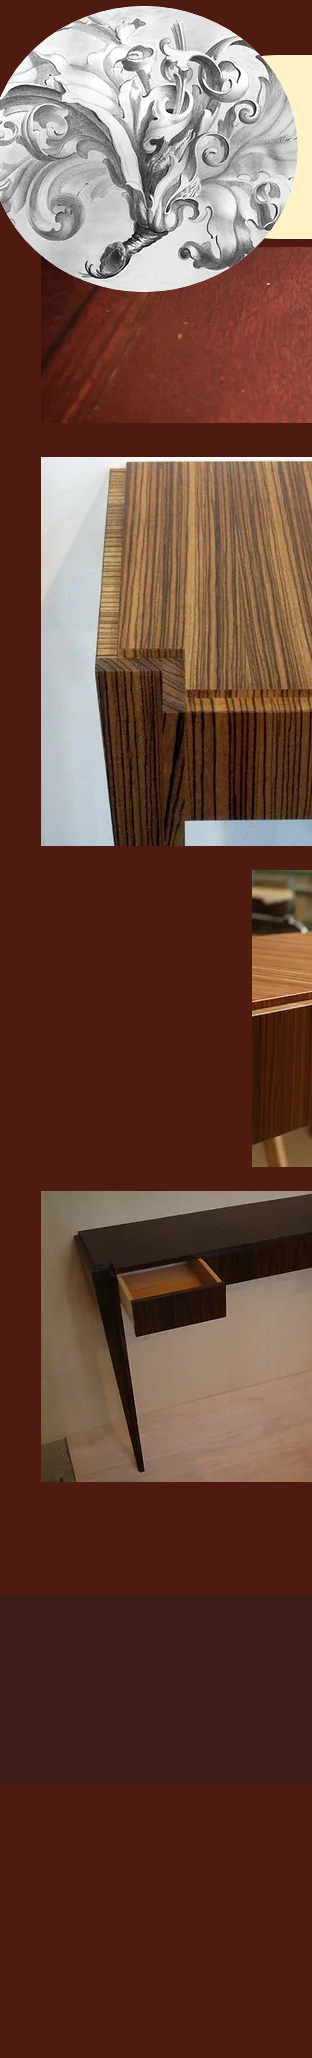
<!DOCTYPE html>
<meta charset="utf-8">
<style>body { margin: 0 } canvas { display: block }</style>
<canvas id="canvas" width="312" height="2058"></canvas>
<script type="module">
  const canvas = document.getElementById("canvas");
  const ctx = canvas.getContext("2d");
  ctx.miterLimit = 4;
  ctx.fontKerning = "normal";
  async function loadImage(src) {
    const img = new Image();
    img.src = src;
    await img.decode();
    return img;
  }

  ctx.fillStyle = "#4f1b11";
  ctx.fillRect(0, 0, 312, 2058);
  ctx.fillStyle = "#fef3c8";
  ctx.beginPath();
  ctx.moveTo(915, 239);
  ctx.lineTo(277, 239);
  ctx.bezierCurveTo(241, 239, 212, 221, 212, 199);
  ctx.lineTo(212, 95);
  ctx.bezierCurveTo(212, 73, 241, 55, 277, 55);
  ctx.lineTo(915, 55);
  ctx.bezierCurveTo(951, 55, 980, 73, 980, 95);
  ctx.lineTo(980, 199);
  ctx.bezierCurveTo(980, 221, 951, 239, 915, 239);
  ctx.closePath();
  ctx.fill();
  ctx.drawImage(await loadImage("img2.png"), 41, 247, 271, 176);
  ctx.fillStyle = "#ffffff";
  ctx.beginPath();
  ctx.ellipse(144, 149, 154, 143, 0, 0, Math.PI * 2);
  ctx.fill();
  ctx.drawImage(await loadImage("img1.png"), 0, 6, 298, 286);
  ctx.drawImage(await loadImage("img3.png"), 41, 457, 271, 389);
  ctx.drawImage(await loadImage("img4.png"), 252, 870, 60, 297);
  ctx.drawImage(await loadImage("img5.png"), 41, 1191, 271, 291);
  ctx.fillStyle = "#3c1d17";
  ctx.fillRect(0, 1595, 312, 189);
</script>
